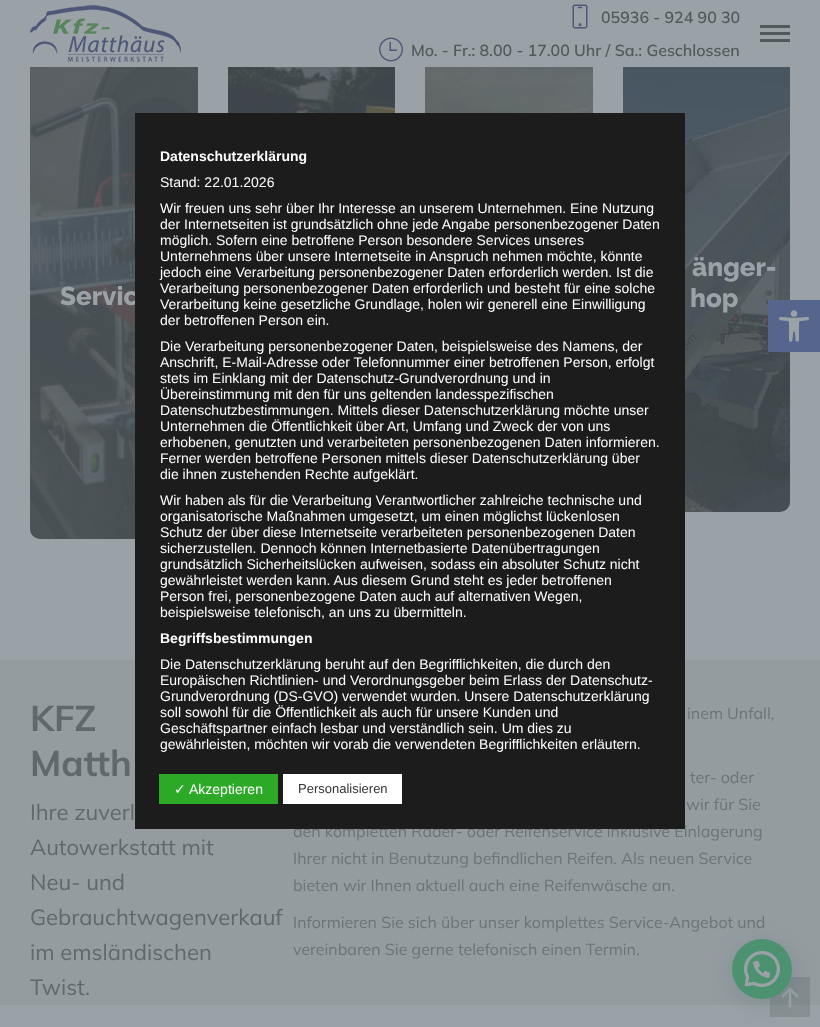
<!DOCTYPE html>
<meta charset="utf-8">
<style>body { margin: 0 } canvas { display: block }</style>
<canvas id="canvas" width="820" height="1027"></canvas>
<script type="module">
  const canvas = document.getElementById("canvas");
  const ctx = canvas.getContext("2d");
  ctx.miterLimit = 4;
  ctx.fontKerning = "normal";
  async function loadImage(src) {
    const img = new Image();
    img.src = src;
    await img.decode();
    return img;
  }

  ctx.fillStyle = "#9ba2a7";
  ctx.fillRect(0, 0, 820, 1027);
  ctx.fillStyle = "#889094";
  ctx.fillRect(770, 1005, 40, 12);
  ctx.drawImage(await loadImage("img1.png"), 30, 5, 151, 57);
  ctx.drawImage(await loadImage("img2.png"), 572, 4, 16, 25);
  ctx.font = "600 16px Mulish";
  ctx.fillStyle = "#51595d";
  ctx.fillText("05936 - 924 90 30", 601, 23);
  ctx.drawImage(await loadImage("img3.png"), 379, 37, 24, 25);
  ctx.fillText("Mo. - Fr.: 8.00 - 17.00 Uhr / Sa.: Geschlossen", 411, 56);
  ctx.fillRect(760, 25, 30, 3);
  ctx.fillRect(760, 32, 30, 3);
  ctx.fillRect(760, 39, 30, 3);
  ctx.drawImage(await loadImage("img4.png"), 228, 67, 167, 46);
  ctx.drawImage(await loadImage("img5.png"), 425, 67, 168, 46);
  ctx.drawImage(await loadImage("img6.png"), 30, 67, 168, 472);
  ctx.font = "800 26px Raleway";
  ctx.fillStyle = "#9ba2a7";
  ctx.fillText("Servic", 60, 305);
  ctx.drawImage(await loadImage("img7.png"), 623, 67, 167, 445);
  ctx.fillText("änger-", 692, 276);
  ctx.fillText("hop", 690, 307);
  ctx.fillStyle = "#949ca0";
  ctx.fillRect(0, 660, 820, 345);
  ctx.fillStyle = "#838b8f";
  ctx.fillRect(770, 977, 40, 28);
  ctx.font = "bold 36px Mulish";
  ctx.fillStyle = "#61686d";
  ctx.fillText("KFZ", 30, 731);
  ctx.fillText("Matth", 30, 776);
  ctx.font = "22px Mulish";
  ctx.fillText("Ihre zuverl", 30, 820);
  ctx.fillText("Autowerkstatt mit", 30, 855);
  ctx.fillText("Neu- und", 30, 890);
  ctx.fillText("Gebrauchtwagenverkauf", 30, 925);
  ctx.fillText("im emsländischen", 30, 960);
  ctx.fillText("Twist.", 30, 995);
  ctx.font = "16px Mulish";
  ctx.fillStyle = "#6c7479";
  ctx.fillText("inem Unfall,", 687, 719);
  ctx.fillText("ter- oder", 690, 783);
  ctx.fillText("wir für Sie", 686, 810);
  ctx.fillText("den kompletten Räder- oder Reifenservice inklusive Einlagerung", 293, 837);
  ctx.fillText("Ihrer nicht in Benutzung befindlichen Reifen. Als neuen Service", 293, 864);
  ctx.fillText("bieten wir Ihnen aktuell auch eine Reifenwäsche an.", 293, 891);
  ctx.fillText("Informieren Sie sich über unser komplettes Service-Angebot und", 293, 928);
  ctx.fillText("vereinbaren Sie gerne telefonisch einen Termin.", 293, 955);
  ctx.drawImage(await loadImage("img8.png"), 781, 987, 18, 21);
  ctx.fillStyle = "#1d1c1c";
  ctx.fillRect(135, 113, 550, 716);
  ctx.font = "bold 14px Liberation Sans";
  ctx.fillStyle = "#ffffff";
  ctx.fillText("Datenschutzerklärung", 160, 161);
  ctx.font = "14px Liberation Sans";
  ctx.fillText("Stand: 22.01.2026", 160, 187);
  ctx.fillText("Wir freuen uns sehr über Ihr Interesse an unserem Unternehmen. Eine Nutzung", 160, 213);
  ctx.fillText("der Internetseiten ist grundsätzlich ohne jede Angabe personenbezogener Daten", 160, 229);
  ctx.fillText("möglich. Sofern eine betroffene Person besondere Services unseres", 160, 245);
  ctx.fillText("Unternehmens über unsere Internetseite in Anspruch nehmen möchte, könnte", 160, 261);
  ctx.fillText("jedoch eine Verarbeitung personenbezogener Daten erforderlich werden. Ist die", 160, 277);
  ctx.fillText("Verarbeitung personenbezogener Daten erforderlich und besteht für eine solche", 160, 293);
  ctx.fillText("Verarbeitung keine gesetzliche Grundlage, holen wir generell eine Einwilligung", 160, 309);
  ctx.fillText("der betroffenen Person ein.", 160, 325);
  ctx.fillText("Die Verarbeitung personenbezogener Daten, beispielsweise des Namens, der", 160, 351);
  ctx.fillText("Anschrift, E-Mail-Adresse oder Telefonnummer einer betroffenen Person, erfolgt", 160, 367);
  ctx.fillText("stets im Einklang mit der Datenschutz-Grundverordnung und in", 160, 383);
  ctx.fillText("Übereinstimmung mit den für uns geltenden landesspezifischen", 160, 399);
  ctx.fillText("Datenschutzbestimmungen. Mittels dieser Datenschutzerklärung möchte unser", 160, 415);
  ctx.fillText("Unternehmen die Öffentlichkeit über Art, Umfang und Zweck der von uns", 160, 431);
  ctx.fillText("erhobenen, genutzten und verarbeiteten personenbezogenen Daten informieren.", 160, 447);
  ctx.fillText("Ferner werden betroffene Personen mittels dieser Datenschutzerklärung über", 160, 463);
  ctx.fillText("die ihnen zustehenden Rechte aufgeklärt.", 160, 479);
  ctx.fillText("Wir haben als für die Verarbeitung Verantwortlicher zahlreiche technische und", 160, 505);
  ctx.fillText("organisatorische Maßnahmen umgesetzt, um einen möglichst lückenlosen", 160, 521);
  ctx.fillText("Schutz der über diese Internetseite verarbeiteten personenbezogenen Daten", 160, 537);
  ctx.fillText("sicherzustellen. Dennoch können Internetbasierte Datenübertragungen", 160, 553);
  ctx.fillText("grundsätzlich Sicherheitslücken aufweisen, sodass ein absoluter Schutz nicht", 160, 569);
  ctx.fillText("gewährleistet werden kann. Aus diesem Grund steht es jeder betroffenen", 160, 585);
  ctx.fillText("Person frei, personenbezogene Daten auch auf alternativen Wegen,", 160, 601);
  ctx.fillText("beispielsweise telefonisch, an uns zu übermitteln.", 160, 617);
  ctx.font = "bold 14px Liberation Sans";
  ctx.fillText("Begriffsbestimmungen", 160, 643);
  ctx.font = "14px Liberation Sans";
  ctx.fillText("Die Datenschutzerklärung beruht auf den Begrifflichkeiten, die durch den", 160, 669);
  ctx.fillText("Europäischen Richtlinien- und Verordnungsgeber beim Erlass der Datenschutz-", 160, 685);
  ctx.fillText("Grundverordnung (DS-GVO) verwendet wurden. Unsere Datenschutzerklärung", 160, 701);
  ctx.fillText("soll sowohl für die Öffentlichkeit als auch für unsere Kunden und", 160, 717);
  ctx.fillText("Geschäftspartner einfach lesbar und verständlich sein. Um dies zu", 160, 733);
  ctx.fillText("gewährleisten, möchten wir vorab die verwendeten Begrifflichkeiten erläutern.", 160, 749);
  ctx.fillStyle = "#2caa27";
  ctx.fillRect(159, 774, 119, 30);
  ctx.font = "14px DejaVu Sans";
  ctx.fillStyle = "#ffffff";
  ctx.fillText("✓", 174, 794);
  ctx.font = "14px Liberation Sans";
  ctx.fillText("Akzeptieren", 189, 794);
  ctx.fillRect(283, 774, 119, 30);
  ctx.font = "13px Liberation Sans";
  ctx.fillStyle = "#333333";
  ctx.fillText("Personalisieren", 298, 793);
  ctx.fillStyle = "#56658b";
  ctx.fillRect(768, 300, 52, 52);
  ctx.drawImage(await loadImage("img9.png"), 779, 310, 30, 32);
  ctx.fillStyle = "rgba(65, 104, 105, 0.24)";
  ctx.filter = "blur(12px)";
  ctx.beginPath();
  ctx.roundRect(733, 945, 60, 60, 30);
  ctx.fill();
  ctx.filter = "none";
  ctx.fillStyle = "#4c9270";
  ctx.beginPath();
  ctx.arc(762, 969, 30, 0, Math.PI * 2);
  ctx.fill();
  ctx.drawImage(await loadImage("img10.png"), 744, 951, 36, 36);
</script>
